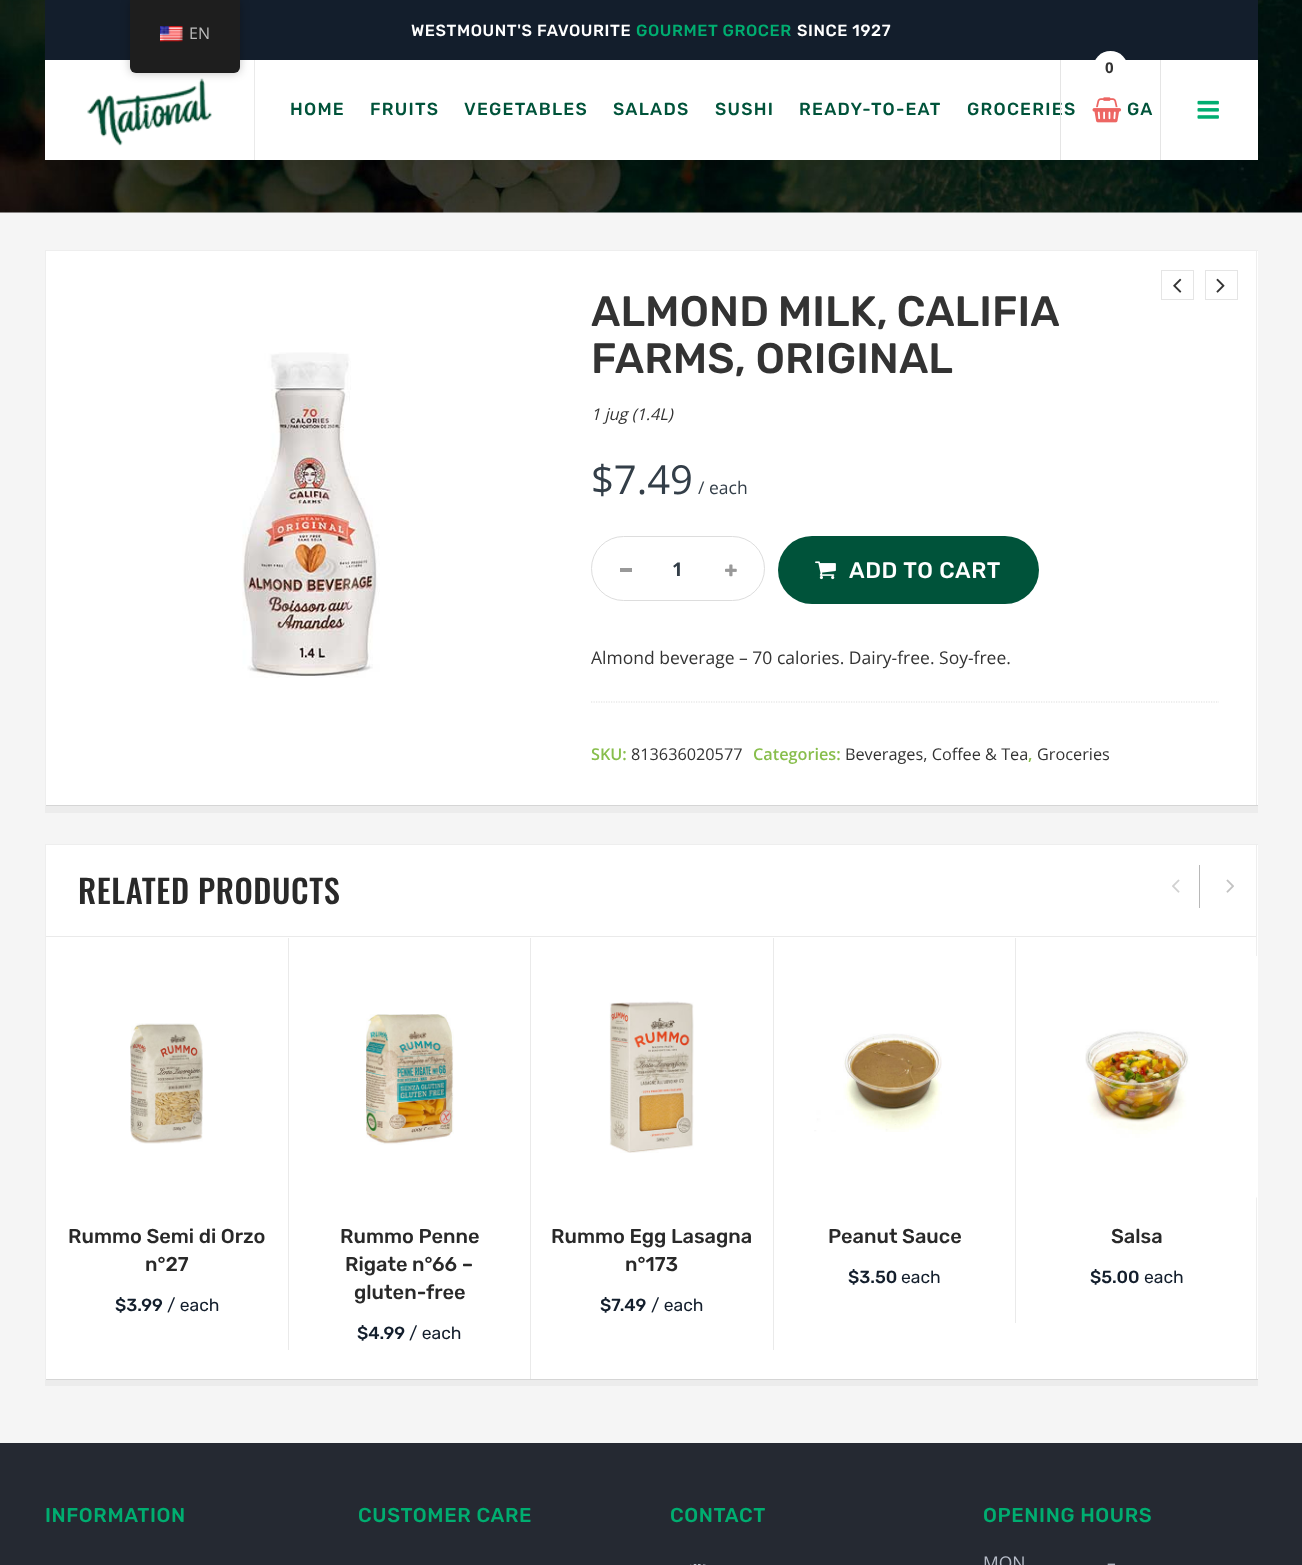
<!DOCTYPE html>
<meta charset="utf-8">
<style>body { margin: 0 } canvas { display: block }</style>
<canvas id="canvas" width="1302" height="1565"></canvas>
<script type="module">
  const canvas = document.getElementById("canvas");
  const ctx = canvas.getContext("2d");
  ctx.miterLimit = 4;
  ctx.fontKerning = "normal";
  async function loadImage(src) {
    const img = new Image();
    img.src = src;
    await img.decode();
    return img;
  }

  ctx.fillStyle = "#f5f5f5";
  ctx.fillRect(0, 0, 1302, 1565);
  ctx.drawImage(await loadImage("img1.png"), 0, 0, 1302, 213);
  ctx.fillStyle = "#131e2c";
  ctx.fillRect(45, 0, 1213, 60);
  ctx.letterSpacing = "0.6px";
  ctx.font = "500 16.25px Rubik";
  ctx.fillStyle = "#ffffff";
  ctx.fillText("WESTMOUNT'S FAVOURITE", 411, 36);
  ctx.fillStyle = "#00ad70";
  ctx.fillText("GOURMET GROCER", 636, 36);
  ctx.fillStyle = "#ffffff";
  ctx.fillText("SINCE 1927", 797, 36);
  ctx.fillRect(45, 60, 1115, 100);
  ctx.fillStyle = "#eaeaea";
  ctx.fillRect(254, 60, 1, 100);
  ctx.drawImage(await loadImage("img2.png"), 87, 78, 125, 68);
  ctx.letterSpacing = "1.25px";
  ctx.font = "500 17.5px Rubik";
  ctx.fillStyle = "#00533a";
  ctx.fillText("GROCERIES", 967, 115);
  ctx.fillStyle = "#e5e5e5";
  ctx.fillRect(1060, 60, 1, 100);
  ctx.fillStyle = "#ffffff";
  ctx.beginPath();
  ctx.arc(1110.5, 68.5, 17.5, 0, Math.PI * 2);
  ctx.fill();
  ctx.letterSpacing = "0.6px";
  ctx.font = "bold 15px Open Sans";
  ctx.fillStyle = "#333333";
  ctx.fillText("0", 1105, 73);
  ctx.drawImage(await loadImage("img3.png"), 1092, 97, 30, 26);
  ctx.fillStyle = "#ffffff";
  ctx.fillRect(1161, 60, 97, 100);
  ctx.fillStyle = "#e5e5e5";
  ctx.fillRect(1160, 60, 1, 100);
  ctx.drawImage(await loadImage("img4.png"), 1197, 100, 22, 19);
  ctx.letterSpacing = "1.25px";
  ctx.font = "500 17.5px Rubik";
  ctx.fillStyle = "#00533a";
  ctx.fillText("HOME", 290, 115);
  ctx.fillText("FRUITS", 370, 115);
  ctx.fillText("VEGETABLES", 464, 115);
  ctx.fillText("SALADS", 613, 115);
  ctx.fillText("SUSHI", 715, 115);
  ctx.fillText("READY-TO-EAT", 799, 115);
  ctx.fillText("GA", 1127, 115);
  ctx.fillStyle = "#ececec";
  ctx.beginPath();
  ctx.moveTo(45, 806);
  ctx.lineTo(45, 813);
  ctx.lineTo(1258, 813);
  ctx.lineTo(1258, 256);
  ctx.lineTo(1258, 806);
  ctx.closePath();
  ctx.fill();
  ctx.fillStyle = "#ffffff";
  ctx.fillRect(46, 251, 1212, 554);
  ctx.fillStyle = "#eeeeee";
  ctx.fillRect(45, 250, 1213, 1);
  ctx.fillRect(1256, 250, 1, 556);
  ctx.fillStyle = "#d5d5d5";
  ctx.fillRect(45, 805, 1213, 1);
  ctx.fillStyle = "#eeeeee";
  ctx.fillRect(45, 250, 1, 556);
  ctx.drawImage(await loadImage("img5.png"), 242, 352, 138, 326);
  ctx.strokeStyle = "#e5e5e5";
  ctx.strokeRect(1161.5, 270.5, 32, 29);
  ctx.drawImage(await loadImage("img6.png"), 1173, 278, 9, 15);
  ctx.strokeRect(1205.5, 270.5, 32, 29);
  ctx.drawImage(await loadImage("img7.png"), 1216, 278, 9, 15);
  ctx.letterSpacing = "0px";
  ctx.wordSpacing = "-1px";
  ctx.font = "500 42.5px Rubik";
  ctx.fillStyle = "#333333";
  ctx.fillText("ALMOND MILK, CALIFIA", 591, 326);
  ctx.wordSpacing = "0px";
  ctx.fillText("FARMS, ORIGINAL", 591, 373);
  ctx.font = "italic 16.25px Open Sans";
  ctx.fillText("1 jug (1.4L)", 591, 420);
  ctx.font = "40px Open Sans";
  ctx.fillStyle = "#333e48";
  ctx.fillText("$7.49", 591, 494);
  ctx.font = "17.5px Open Sans";
  ctx.fillText("/ each", 698, 494);
  ctx.beginPath();
  ctx.roundRect(591.5, 536.5, 173, 64, 32);
  ctx.strokeStyle = "#dddddd";
  ctx.stroke();
  ctx.fillStyle = "#999999";
  ctx.fillRect(620, 568, 12, 4);
  ctx.font = "bold 19px Open Sans";
  ctx.fillStyle = "#333e48";
  ctx.fillText("1", 672, 576);
  ctx.drawImage(await loadImage("img8.png"), 725, 564, 12, 13);
  ctx.fillStyle = "#00533a";
  ctx.beginPath();
  ctx.roundRect(778, 536, 261, 68, 34);
  ctx.fill();
  ctx.drawImage(await loadImage("img9.png"), 815, 561, 21, 19);
  ctx.letterSpacing = "0.6px";
  ctx.font = "500 22.5px Rubik";
  ctx.fillStyle = "#ffffff";
  ctx.fillText("ADD TO CART", 849, 578);
  ctx.beginPath();
  ctx.moveTo(591, 702);
  ctx.lineTo(1219, 702);
  ctx.lineWidth = 1.2;
  ctx.setLineDash([1.25, 1.25]);
  ctx.stroke();
  ctx.letterSpacing = "0px";
  ctx.font = "17.5px Open Sans";
  ctx.fillStyle = "#333333";
  ctx.fillText("Almond beverage – 70 calories. Dairy-free. Soy-free.", 591, 664);
  ctx.font = "600 16.25px Open Sans";
  ctx.fillStyle = "#88be4c";
  ctx.fillText("SKU:", 591, 760);
  ctx.font = "16.25px Open Sans";
  ctx.fillStyle = "#333333";
  ctx.fillText("813636020577", 631, 760);
  ctx.font = "600 16.25px Open Sans";
  ctx.fillStyle = "#88be4c";
  ctx.fillText("Categories:", 753, 760);
  ctx.font = "16.25px Open Sans";
  ctx.fillStyle = "#333333";
  ctx.fillText("Beverages, Coffee & Tea", 845, 760);
  ctx.font = "600 16.25px Open Sans";
  ctx.fillStyle = "#88be4c";
  ctx.fillText(",", 1028, 760);
  ctx.font = "16.25px Open Sans";
  ctx.fillStyle = "#333333";
  ctx.fillText("Groceries", 1037, 760);
  ctx.fillStyle = "#ececec";
  ctx.beginPath();
  ctx.moveTo(45, 1380);
  ctx.lineTo(45, 1386);
  ctx.lineTo(1258, 1386);
  ctx.lineTo(1258, 850);
  ctx.lineTo(1258, 1380);
  ctx.closePath();
  ctx.fill();
  ctx.fillStyle = "#ffffff";
  ctx.fillRect(46, 845, 1212, 534);
  ctx.fillStyle = "#eeeeee";
  ctx.fillRect(45, 844, 1213, 1);
  ctx.fillRect(1256, 844, 1, 536);
  ctx.fillStyle = "#d5d5d5";
  ctx.fillRect(45, 1379, 1213, 1);
  ctx.fillStyle = "#eeeeee";
  ctx.fillRect(45, 844, 1, 536);
  ctx.fillStyle = "#eaeaea";
  ctx.fillRect(46, 936, 1210, 1);
  ctx.letterSpacing = "0.6px";
  ctx.font = "500 32.5px Oswald";
  ctx.fillStyle = "#292929";
  ctx.fillText("RELATED PRODUCTS", 78, 904);
  ctx.fillStyle = "#b8b8b8";
  ctx.fillRect(1199, 865, 1, 43);
  ctx.drawImage(await loadImage("img10.png"), 1172, 879, 8, 14);
  ctx.drawImage(await loadImage("img11.png"), 1226, 879, 8, 14);
  ctx.fillStyle = "#eaeaea";
  ctx.fillRect(288, 938, 1, 412);
  ctx.drawImage(await loadImage("img12.png"), 130, 1023, 73, 121);
  ctx.letterSpacing = "0px";
  ctx.font = "500 20px Rubik";
  ctx.fillStyle = "#292929";
  ctx.fillText("Rummo Semi di Orzo", 68, 1243);
  ctx.fillText("n°27", 145, 1271);
  ctx.font = "500 17.5px Rubik";
  ctx.fillStyle = "#131e2c";
  ctx.fillText("$3.99", 115, 1311);
  ctx.font = "17.5px Rubik";
  ctx.fillText("/ each", 167, 1311);
  ctx.fillStyle = "#eaeaea";
  ctx.fillRect(530, 938, 1, 441);
  ctx.drawImage(await loadImage("img13.png"), 365, 1014, 89, 131);
  ctx.font = "500 20px Rubik";
  ctx.fillStyle = "#292929";
  ctx.fillText("Rummo Penne", 340, 1243);
  ctx.fillText("Rigate n°66 –", 345, 1271);
  ctx.fillText("gluten-free", 354, 1299);
  ctx.font = "500 17.5px Rubik";
  ctx.fillStyle = "#131e2c";
  ctx.fillText("$4.99", 357, 1339);
  ctx.font = "17.5px Rubik";
  ctx.fillText("/ each", 409, 1339);
  ctx.fillStyle = "#eaeaea";
  ctx.fillRect(773, 938, 1, 412);
  ctx.drawImage(await loadImage("img14.png"), 609, 1001, 85, 152);
  ctx.font = "500 20px Rubik";
  ctx.fillStyle = "#292929";
  ctx.fillText("Rummo Egg Lasagna", 551, 1243);
  ctx.fillText("n°173", 625, 1271);
  ctx.font = "500 17.5px Rubik";
  ctx.fillStyle = "#131e2c";
  ctx.fillText("$7.49", 600, 1311);
  ctx.font = "17.5px Rubik";
  ctx.fillText("/ each", 651, 1311);
  ctx.fillStyle = "#eaeaea";
  ctx.fillRect(1015, 938, 1, 385);
  ctx.drawImage(await loadImage("img15.png"), 814, 1033, 128, 99);
  ctx.font = "500 20px Rubik";
  ctx.fillStyle = "#292929";
  ctx.fillText("Peanut Sauce", 828, 1243);
  ctx.font = "500 17.5px Rubik";
  ctx.fillStyle = "#131e2c";
  ctx.fillText("$3.50", 848, 1283);
  ctx.font = "17.5px Rubik";
  ctx.fillText("each", 901, 1283);
  ctx.drawImage(await loadImage("img16.png"), 1085, 956, 172, 242);
  ctx.font = "500 20px Rubik";
  ctx.fillStyle = "#292929";
  ctx.fillText("Salsa", 1111, 1243);
  ctx.font = "500 17.5px Rubik";
  ctx.fillStyle = "#131e2c";
  ctx.fillText("$5.00", 1090, 1283);
  ctx.font = "17.5px Rubik";
  ctx.fillText("each", 1144, 1283);
  ctx.fillStyle = "#252932";
  ctx.fillRect(0, 1443, 1302, 122);
  ctx.letterSpacing = "0.6px";
  ctx.font = "500 20px Rubik";
  ctx.fillStyle = "#00ad70";
  ctx.fillText("INFORMATION", 45, 1522);
  ctx.fillText("CUSTOMER CARE", 358, 1522);
  ctx.fillText("CONTACT", 670, 1522);
  ctx.save();
  ctx.beginPath();
  ctx.rect(670, 1564, 256, 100);
  ctx.clip();
  ctx.beginPath();
  ctx.moveTo(698, 1565);
  ctx.bezierCurveTo(713, 1565, 725, 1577, 725, 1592);
  ctx.bezierCurveTo(725, 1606.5, 713, 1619, 698, 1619);
  ctx.bezierCurveTo(683.5, 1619, 671, 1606.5, 671, 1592);
  ctx.bezierCurveTo(671, 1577, 683.5, 1565, 698, 1565);
  ctx.closePath();
  ctx.strokeStyle = "#b7bcc8";
  ctx.lineWidth = 2.5;
  ctx.setLineDash([2.5, 2.5]);
  ctx.stroke();
  ctx.restore();
  ctx.fillText("OPENING HOURS", 983, 1522);
  ctx.letterSpacing = "0px";
  ctx.font = "17.5px Open Sans";
  ctx.fillStyle = "#b7bcc8";
  ctx.fillText("MON", 983, 1569);
  ctx.fillText("–", 1107, 1569);
  ctx.fillStyle = "rgba(0, 0, 0, 0.25)";
  ctx.filter = "blur(5px)";
  ctx.beginPath();
  ctx.roundRect(130, 0, 110, 73, 6);
  ctx.fill();
  ctx.filter = "none";
  ctx.fillStyle = "#1e1e1e";
  ctx.beginPath();
  ctx.roundRect(130, 0, 110, 73, [0, 0, 6, 6]);
  ctx.fill();
  ctx.drawImage(await loadImage("img17.png"), 160, 26, 23, 16);
  ctx.font = "16px Open Sans";
  ctx.fillStyle = "#bdbdbd";
  ctx.fillText("EN", 189, 39);
</script>
